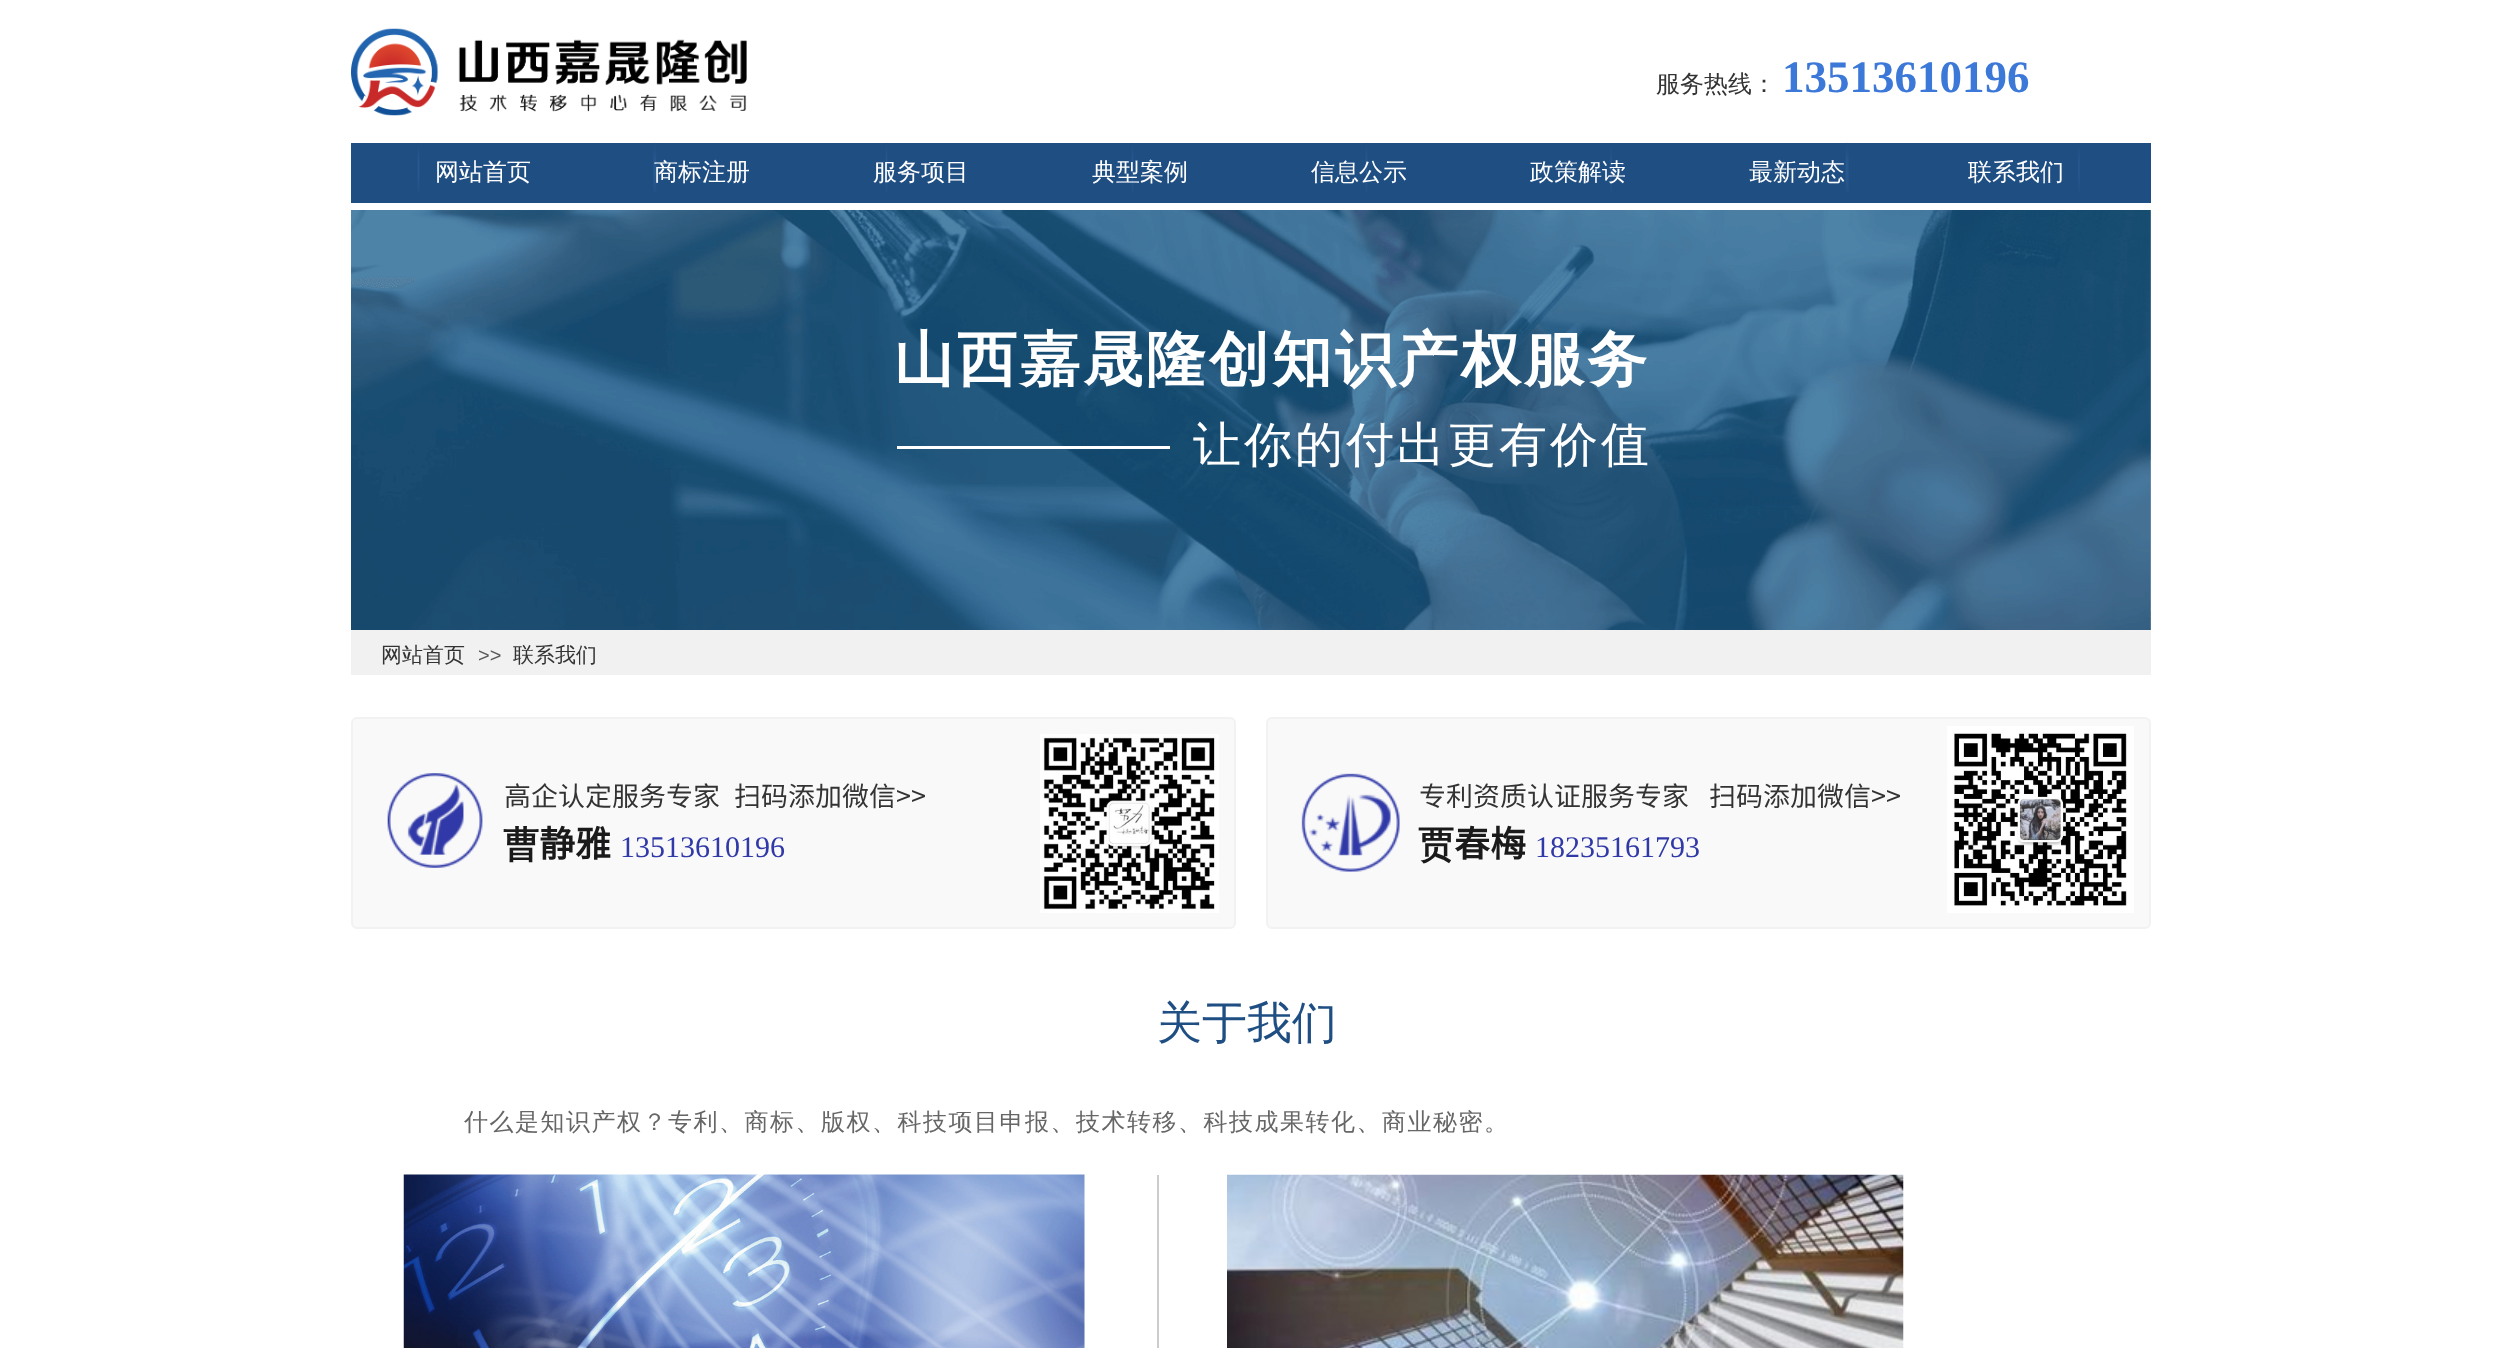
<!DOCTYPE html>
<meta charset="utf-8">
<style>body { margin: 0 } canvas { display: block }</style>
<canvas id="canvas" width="2501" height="1348"></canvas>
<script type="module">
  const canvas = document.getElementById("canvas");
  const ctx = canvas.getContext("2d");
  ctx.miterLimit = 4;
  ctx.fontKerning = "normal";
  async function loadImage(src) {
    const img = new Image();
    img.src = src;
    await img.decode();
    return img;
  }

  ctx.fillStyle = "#ffffff";
  ctx.fillRect(0, 0, 2501, 1348);
  ctx.drawImage(await loadImage("img1.png"), 351, 28, 396, 88);
  ctx.font = "500 24px WenQuanYi Zen Hei";
  ctx.fillStyle = "#333333";
  ctx.fillText("服务热线：", 1656, 92);
  ctx.font = "bold 45px Liberation Serif";
  ctx.fillStyle = "#3c78d8";
  ctx.fillText("13513610196", 1782, 92);
  ctx.fillStyle = "#1f4e83";
  ctx.fillRect(351, 143, 1800, 60);
  ctx.drawImage(await loadImage("img2.png"), 417, 142, 1663, 50);
  ctx.font = "500 24px WenQuanYi Zen Hei";
  ctx.fillStyle = "#ffffff";
  ctx.fillText("网站首页", 435, 180);
  ctx.fillText("商标注册", 654, 180);
  ctx.fillText("服务项目", 873, 180);
  ctx.fillText("典型案例", 1092, 180);
  ctx.fillText("信息公示", 1311, 180);
  ctx.fillText("政策解读", 1530, 180);
  ctx.fillText("最新动态", 1749, 180);
  ctx.fillText("联系我们", 1968, 180);
  ctx.drawImage(await loadImage("img3.png"), 351, 210, 1800, 420);
  ctx.letterSpacing = "3px";
  ctx.font = "bold 60px WenQuanYi Zen Hei";
  ctx.fillText("山西嘉晟隆创知识产权服务", 894, 380);
  ctx.fillRect(897, 446, 273, 3);
  ctx.save();
  ctx.beginPath();
  ctx.rect(1193, 411, 465, 65);
  ctx.clip();
  ctx.font = "500 48px WenQuanYi Zen Hei";
  ctx.fillText("让你的付出更有价值", 1193, 461);
  ctx.restore();
  ctx.fillStyle = "#f1f1f1";
  ctx.fillRect(351, 630, 1800, 45);
  ctx.letterSpacing = "0px";
  ctx.font = "500 21px WenQuanYi Zen Hei";
  ctx.fillStyle = "#333333";
  ctx.fillText("网站首页", 381, 662);
  ctx.font = "20px Liberation Sans";
  ctx.fillStyle = "#5a5a5a";
  ctx.fillText(">>", 478, 662);
  ctx.font = "500 21px WenQuanYi Zen Hei";
  ctx.fillStyle = "#333333";
  ctx.fillText("联系我们", 513, 662);
  ctx.fillStyle = "#f9f9f9";
  ctx.beginPath();
  ctx.roundRect(352, 718, 883, 210, 5);
  ctx.fill();
  ctx.strokeStyle = "#f2f2f2";
  ctx.lineWidth = 2;
  ctx.stroke();
  ctx.drawImage(await loadImage("img4.png"), 387, 773, 96, 95);
  ctx.font = "27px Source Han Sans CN";
  ctx.fillStyle = "#333333";
  ctx.fillText("高企认定服务专家", 504, 806);
  ctx.fillText("扫码添加微信>>", 734, 806);
  ctx.drawImage(await loadImage("img5.png"), 1040, 734, 179, 179);
  ctx.font = "bold 36px WenQuanYi Zen Hei";
  ctx.fillStyle = "#1a1a1a";
  ctx.fillText("曹", 503, 857);
  ctx.font = "bold 36px Source Han Sans CN";
  ctx.fillText("静雅", 539, 857);
  ctx.font = "30px Liberation Serif";
  ctx.fillStyle = "#3039a7";
  ctx.fillText("13513610196", 620, 857);
  ctx.fillStyle = "#f9f9f9";
  ctx.beginPath();
  ctx.roundRect(1267, 718, 883, 210, 5);
  ctx.fill();
  ctx.stroke();
  ctx.drawImage(await loadImage("img6.png"), 1301, 773, 99, 99);
  ctx.font = "27px Source Han Sans CN";
  ctx.fillStyle = "#333333";
  ctx.fillText("专利资质认证服务专家", 1419, 806);
  ctx.fillText("扫码添加微信>>", 1709, 806);
  ctx.drawImage(await loadImage("img7.png"), 1947, 726, 187, 187);
  ctx.font = "bold 36px WenQuanYi Zen Hei";
  ctx.fillStyle = "#1a1a1a";
  ctx.fillText("贾", 1418, 857);
  ctx.font = "bold 36px Source Han Sans CN";
  ctx.fillText("春梅", 1454, 857);
  ctx.font = "30px Liberation Serif";
  ctx.fillStyle = "#3039a7";
  ctx.fillText("18235161793", 1535, 857);
  ctx.font = "500 45px WenQuanYi Zen Hei";
  ctx.fillStyle = "#1f4e83";
  ctx.fillText("关于我们", 1157, 1038);
  ctx.letterSpacing = "1.5px";
  ctx.font = "500 24px WenQuanYi Zen Hei";
  ctx.fillStyle = "#666666";
  ctx.fillText("什么是知识产权？专利、商标、版权、科技项目申报、技术转移、科技成果转化、商业秘密。", 464, 1130);
  ctx.drawImage(await loadImage("img8.png"), 403, 1174, 682, 174);
  ctx.fillStyle = "#cccccc";
  ctx.fillRect(1157, 1175, 2, 173);
  ctx.drawImage(await loadImage("img9.png"), 1227, 1174, 677, 174);
</script>
